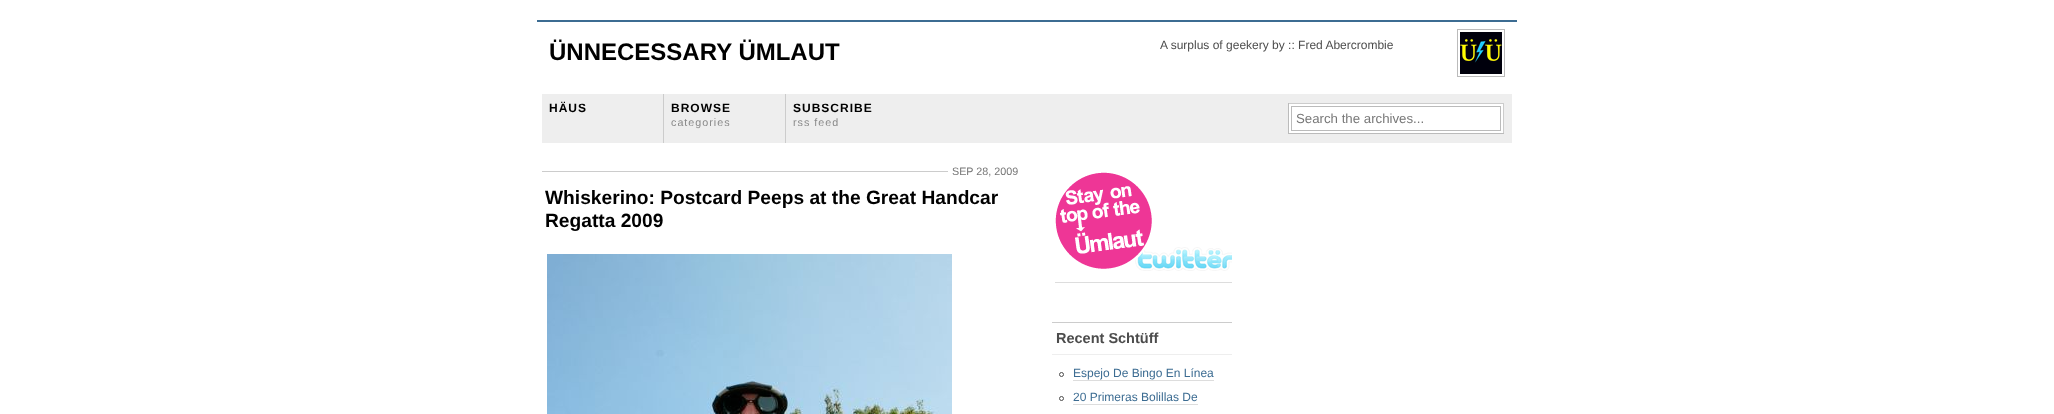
<!DOCTYPE html>
<meta charset="utf-8">
<style>body { margin: 0 } canvas { display: block }</style>
<canvas id="canvas" width="2054" height="414"></canvas>
<script type="module">
  const canvas = document.getElementById("canvas");
  const ctx = canvas.getContext("2d");
  ctx.miterLimit = 4;
  ctx.fontKerning = "normal";
  async function loadImage(src) {
    const img = new Image();
    img.src = src;
    await img.decode();
    return img;
  }

  ctx.fillStyle = "#ffffff";
  ctx.fillRect(0, 0, 2054, 414);
  ctx.fillStyle = "#3c6c92";
  ctx.fillRect(537, 20, 980, 2);
  ctx.font = "bold 24px Liberation Sans";
  ctx.fillStyle = "#000000";
  ctx.fillText("ÜNNECESSARY ÜMLAUT", 549, 60);
  ctx.font = "12px Liberation Sans";
  ctx.fillStyle = "#4c4c4c";
  ctx.fillText("A surplus of geekery by :: Fred Abercrombie", 1160, 49);
  ctx.strokeStyle = "#bbbbbb";
  ctx.strokeRect(1457.5, 29.5, 47, 47);
  ctx.drawImage(await loadImage("img1.png"), 1460, 32, 42, 42);
  ctx.fillStyle = "#eeeeee";
  ctx.fillRect(542, 94, 970, 49);
  ctx.fillStyle = "#cccccc";
  ctx.fillRect(663, 94, 1, 49);
  ctx.letterSpacing = "1px";
  ctx.font = "bold 12px Liberation Sans";
  ctx.fillStyle = "#000000";
  ctx.fillText("HÄUS", 549, 112);
  ctx.fillStyle = "#cccccc";
  ctx.fillRect(785, 94, 1, 49);
  ctx.fillStyle = "#000000";
  ctx.fillText("BROWSE", 671, 112);
  ctx.font = "10.75px Liberation Sans";
  ctx.fillStyle = "#888888";
  ctx.fillText("categories", 671, 126);
  ctx.font = "bold 12px Liberation Sans";
  ctx.fillStyle = "#000000";
  ctx.fillText("SUBSCRIBE", 793, 112);
  ctx.font = "10.75px Liberation Sans";
  ctx.fillStyle = "#888888";
  ctx.fillText("rss feed", 793, 126);
  ctx.fillStyle = "#ffffff";
  ctx.fillRect(1289, 104, 214, 29);
  ctx.fillStyle = "#cccccc";
  ctx.fillRect(1288, 103, 216, 1);
  ctx.fillRect(1503, 103, 1, 31);
  ctx.fillStyle = "#bbbbbb";
  ctx.fillRect(1288, 133, 216, 1);
  ctx.fillRect(1288, 103, 1, 31);
  ctx.strokeRect(1291.5, 106.5, 209, 24);
  ctx.letterSpacing = "0px";
  ctx.font = "13.25px Liberation Sans";
  ctx.fillStyle = "#777777";
  ctx.fillText("Search the archives...", 1296, 123);
  ctx.fillStyle = "#cccccc";
  ctx.fillRect(542, 171, 406, 1);
  ctx.font = "10.75px Liberation Sans";
  ctx.fillStyle = "#777777";
  ctx.fillText("SEP 28, 2009", 952, 175);
  ctx.font = "bold 19.2px Liberation Sans";
  ctx.fillStyle = "#000000";
  ctx.fillText("Whiskerino: Postcard Peeps at the Great Handcar", 545, 204);
  ctx.fillText("Regatta 2009", 545, 227);
  ctx.drawImage(await loadImage("img2.png"), 547, 254, 405, 160);
  ctx.drawImage(await loadImage("img3.png"), 1055, 172, 177, 99);
  ctx.fillStyle = "#dddddd";
  ctx.fillRect(1055, 282, 177, 1);
  ctx.fillStyle = "#cccccc";
  ctx.fillRect(1052, 322, 180, 1);
  ctx.fillStyle = "#eeeeee";
  ctx.fillRect(1052, 354, 180, 1);
  ctx.font = "bold 14.5px Liberation Sans";
  ctx.fillStyle = "#4c4c4c";
  ctx.fillText("Recent Schtüff", 1056, 343);
  ctx.beginPath();
  ctx.arc(1061.5, 374.5, 2, 0, Math.PI * 2);
  ctx.strokeStyle = "#4c4c4c";
  ctx.stroke();
  ctx.font = "12px Liberation Sans";
  ctx.fillStyle = "#3c6c92";
  ctx.fillText("Espejo De Bingo En Línea", 1073, 377);
  ctx.fillStyle = "#dddddd";
  ctx.fillRect(1073, 380, 141, 1);
  ctx.beginPath();
  ctx.arc(1061.5, 398.5, 2, 0, Math.PI * 2);
  ctx.stroke();
  ctx.fillStyle = "#3c6c92";
  ctx.fillText("20 Primeras Bolillas De", 1073, 401);
  ctx.fillStyle = "#dddddd";
  ctx.fillRect(1073, 404, 125, 1);
</script>
